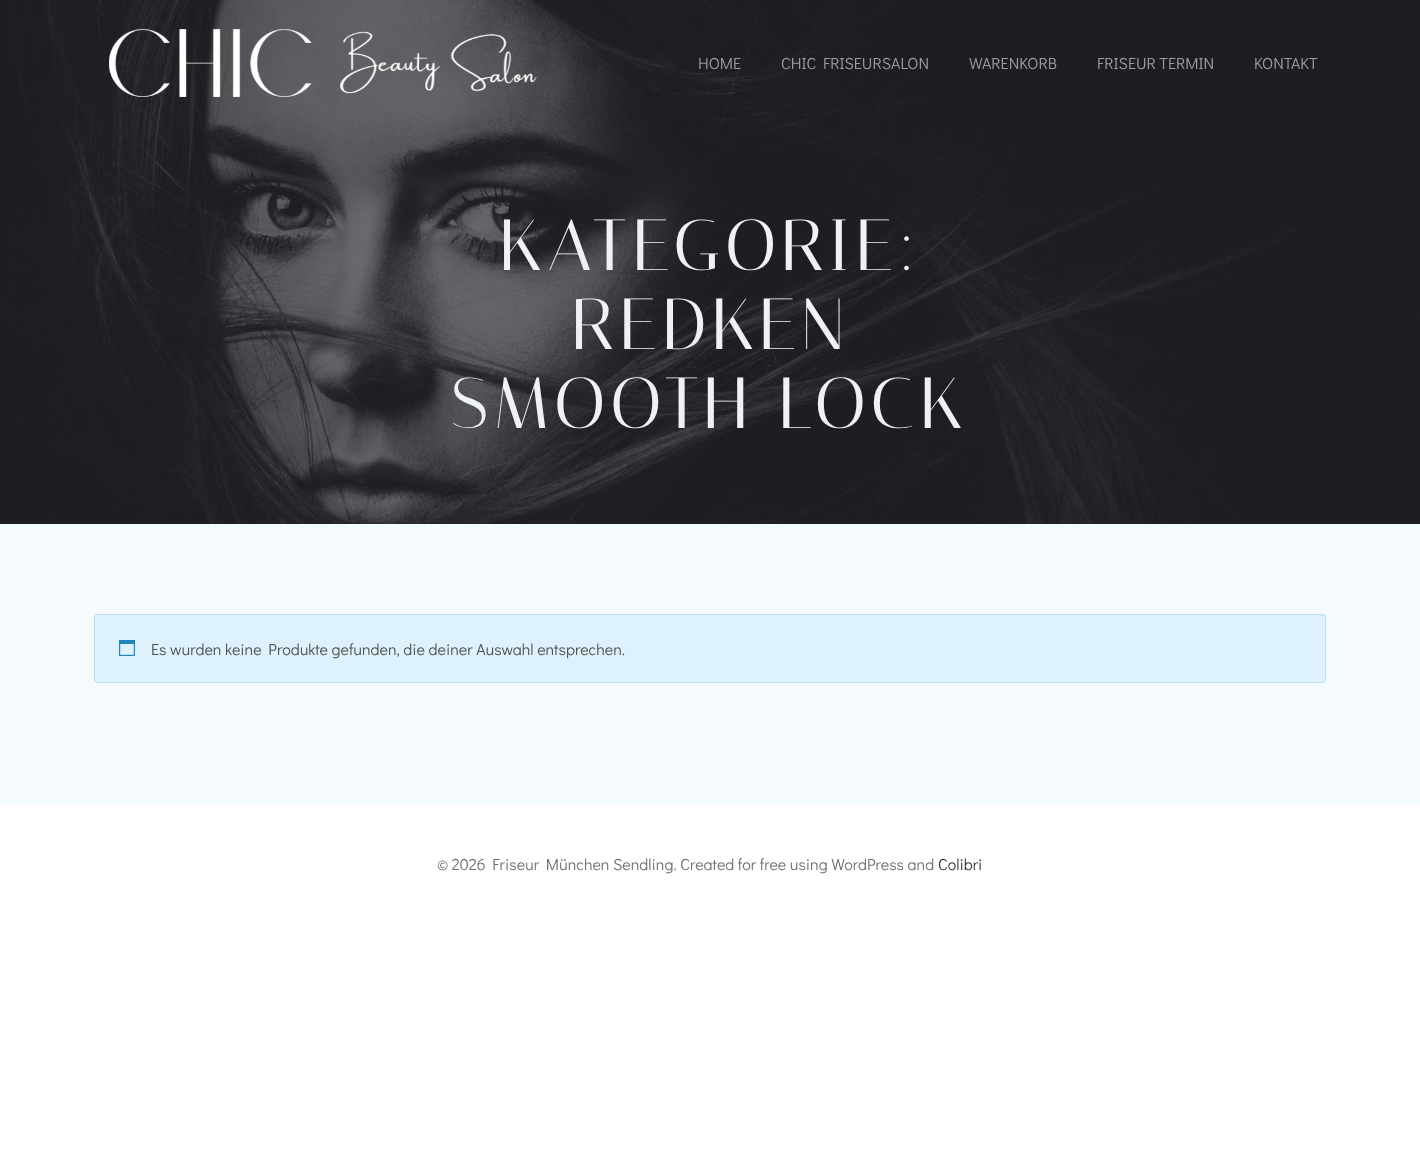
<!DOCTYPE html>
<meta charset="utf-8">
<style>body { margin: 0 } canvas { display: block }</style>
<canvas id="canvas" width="1420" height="1165"></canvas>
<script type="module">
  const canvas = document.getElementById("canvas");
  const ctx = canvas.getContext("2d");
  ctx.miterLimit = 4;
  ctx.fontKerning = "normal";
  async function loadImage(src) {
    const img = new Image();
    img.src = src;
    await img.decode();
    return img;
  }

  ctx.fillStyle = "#ffffff";
  ctx.fillRect(0, 0, 1420, 1165);
  ctx.drawImage(await loadImage("img2.png"), 0, 0, 1420, 524);
  ctx.drawImage(await loadImage("img1.png"), 109, 29, 428, 68);
  ctx.font = "16px Didact Gothic";
  ctx.fillStyle = "#9b9da1";
  ctx.fillText("HOME", 698, 69);
  ctx.fillText("CHIC FRISEURSALON", 781, 69);
  ctx.fillText("WARENKORB", 969, 69);
  ctx.fillText("FRISEUR TERMIN", 1097, 69);
  ctx.fillText("KONTAKT", 1254, 69);
  ctx.letterSpacing = "5px";
  ctx.font = "72px Italiana";
  ctx.fillStyle = "#eef1f5";
  ctx.fillText("KATEGORIE:", 499, 270);
  ctx.fillText("REDKEN", 571, 349);
  ctx.fillText("SMOOTH LOCK", 451, 428);
  ctx.fillStyle = "#f5fafd";
  ctx.fillRect(0, 524, 1420, 281);
  ctx.fillStyle = "#ddf2fc";
  ctx.beginPath();
  ctx.roundRect(94, 614, 1232, 69, 4);
  ctx.fill();
  ctx.beginPath();
  ctx.roundRect(94.5, 614.5, 1231, 68, 3.5);
  ctx.strokeStyle = "rgba(74, 144, 226, 0.2)";
  ctx.stroke();
  ctx.drawImage(await loadImage("img3.png"), 119, 640, 16, 16);
  ctx.letterSpacing = "0px";
  ctx.font = "16px Didact Gothic";
  ctx.fillStyle = "#515151";
  ctx.fillText("Es wurden keine Produkte gefunden, die deiner Auswahl entsprechen.", 151, 655);
  ctx.fillStyle = "#717175";
  ctx.fillText("© 2026 Friseur München Sendling. Created for free using WordPress and", 437, 870);
  ctx.fillStyle = "#373739";
  ctx.fillText("Colibri", 938, 870);
</script>
